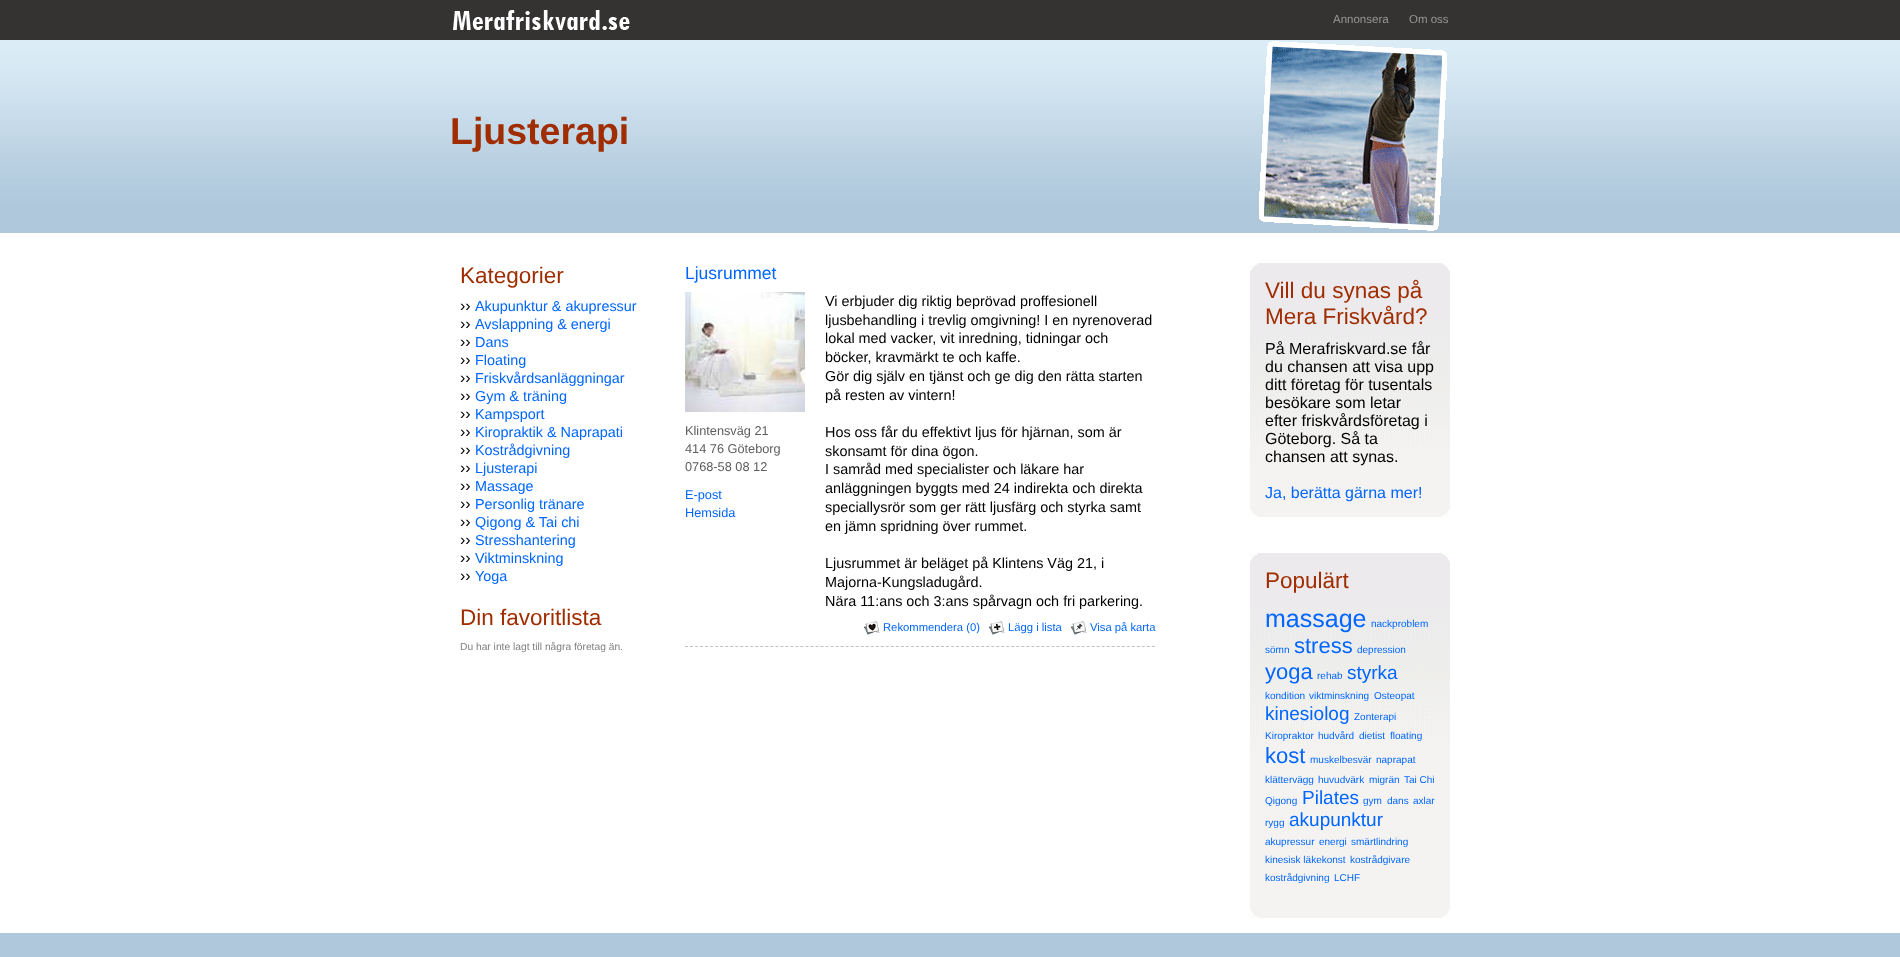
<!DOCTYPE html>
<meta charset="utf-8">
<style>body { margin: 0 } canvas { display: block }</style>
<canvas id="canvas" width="1900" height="957"></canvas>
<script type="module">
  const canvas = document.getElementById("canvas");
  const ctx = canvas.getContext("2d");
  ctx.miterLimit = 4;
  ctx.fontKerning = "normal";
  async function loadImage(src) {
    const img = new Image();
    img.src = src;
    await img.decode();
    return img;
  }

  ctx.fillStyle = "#ffffff";
  ctx.fillRect(0, 0, 1900, 957);
  ctx.fillStyle = "#353232";
  ctx.fillRect(0, 0, 1900, 40);
  ctx.drawImage(await loadImage("img1.png"), 453, 10, 177, 20);
  ctx.font = "11.5px Liberation Sans";
  ctx.fillStyle = "#969696";
  ctx.fillText("Annonsera", 1333, 23);
  ctx.fillText("Om oss", 1409, 23);
  ctx.drawImage(await loadImage("img2.png"), 0, 40, 1900, 193);
  ctx.font = "bold 37.5px Liberation Sans";
  ctx.fillStyle = "#a02d00";
  ctx.fillText("Ljusterapi", 450, 144);
  ctx.drawImage(await loadImage("img3.png"), 1259, 41, 188, 190);
  ctx.font = "22.5px Liberation Sans";
  ctx.fillText("Kategorier", 460, 283);
  ctx.font = "16px Liberation Sans";
  ctx.fillStyle = "#000000";
  ctx.fillText("››", 460, 311);
  ctx.font = "14.4px Liberation Sans";
  ctx.fillStyle = "#0066ff";
  ctx.fillText("Akupunktur & akupressur", 475, 311);
  ctx.font = "16px Liberation Sans";
  ctx.fillStyle = "#000000";
  ctx.fillText("››", 460, 329);
  ctx.font = "14.4px Liberation Sans";
  ctx.fillStyle = "#0066ff";
  ctx.fillText("Avslappning & energi", 475, 329);
  ctx.font = "16px Liberation Sans";
  ctx.fillStyle = "#000000";
  ctx.fillText("››", 460, 347);
  ctx.font = "14.4px Liberation Sans";
  ctx.fillStyle = "#0066ff";
  ctx.fillText("Dans", 475, 347);
  ctx.font = "16px Liberation Sans";
  ctx.fillStyle = "#000000";
  ctx.fillText("››", 460, 365);
  ctx.font = "14.4px Liberation Sans";
  ctx.fillStyle = "#0066ff";
  ctx.fillText("Floating", 475, 365);
  ctx.font = "16px Liberation Sans";
  ctx.fillStyle = "#000000";
  ctx.fillText("››", 460, 383);
  ctx.font = "14.4px Liberation Sans";
  ctx.fillStyle = "#0066ff";
  ctx.fillText("Friskvårdsanläggningar", 475, 383);
  ctx.font = "16px Liberation Sans";
  ctx.fillStyle = "#000000";
  ctx.fillText("››", 460, 401);
  ctx.font = "14.4px Liberation Sans";
  ctx.fillStyle = "#0066ff";
  ctx.fillText("Gym & träning", 475, 401);
  ctx.font = "16px Liberation Sans";
  ctx.fillStyle = "#000000";
  ctx.fillText("››", 460, 419);
  ctx.font = "14.4px Liberation Sans";
  ctx.fillStyle = "#0066ff";
  ctx.fillText("Kampsport", 475, 419);
  ctx.font = "16px Liberation Sans";
  ctx.fillStyle = "#000000";
  ctx.fillText("››", 460, 437);
  ctx.font = "14.4px Liberation Sans";
  ctx.fillStyle = "#0066ff";
  ctx.fillText("Kiropraktik & Naprapati", 475, 437);
  ctx.font = "16px Liberation Sans";
  ctx.fillStyle = "#000000";
  ctx.fillText("››", 460, 455);
  ctx.font = "14.4px Liberation Sans";
  ctx.fillStyle = "#0066ff";
  ctx.fillText("Kostrådgivning", 475, 455);
  ctx.font = "16px Liberation Sans";
  ctx.fillStyle = "#000000";
  ctx.fillText("››", 460, 473);
  ctx.font = "14.4px Liberation Sans";
  ctx.fillStyle = "#0066ff";
  ctx.fillText("Ljusterapi", 475, 473);
  ctx.font = "16px Liberation Sans";
  ctx.fillStyle = "#000000";
  ctx.fillText("››", 460, 491);
  ctx.font = "14.4px Liberation Sans";
  ctx.fillStyle = "#0066ff";
  ctx.fillText("Massage", 475, 491);
  ctx.font = "16px Liberation Sans";
  ctx.fillStyle = "#000000";
  ctx.fillText("››", 460, 509);
  ctx.font = "14.4px Liberation Sans";
  ctx.fillStyle = "#0066ff";
  ctx.fillText("Personlig tränare", 475, 509);
  ctx.font = "16px Liberation Sans";
  ctx.fillStyle = "#000000";
  ctx.fillText("››", 460, 527);
  ctx.font = "14.4px Liberation Sans";
  ctx.fillStyle = "#0066ff";
  ctx.fillText("Qigong & Tai chi", 475, 527);
  ctx.font = "16px Liberation Sans";
  ctx.fillStyle = "#000000";
  ctx.fillText("››", 460, 545);
  ctx.font = "14.4px Liberation Sans";
  ctx.fillStyle = "#0066ff";
  ctx.fillText("Stresshantering", 475, 545);
  ctx.font = "16px Liberation Sans";
  ctx.fillStyle = "#000000";
  ctx.fillText("››", 460, 563);
  ctx.font = "14.4px Liberation Sans";
  ctx.fillStyle = "#0066ff";
  ctx.fillText("Viktminskning", 475, 563);
  ctx.font = "16px Liberation Sans";
  ctx.fillStyle = "#000000";
  ctx.fillText("››", 460, 581);
  ctx.font = "14.4px Liberation Sans";
  ctx.fillStyle = "#0066ff";
  ctx.fillText("Yoga", 475, 581);
  ctx.font = "22.5px Liberation Sans";
  ctx.fillStyle = "#a02d00";
  ctx.fillText("Din favoritlista", 460, 625);
  ctx.font = "10.25px Liberation Sans";
  ctx.fillStyle = "#808080";
  ctx.fillText("Du har inte lagt till några företag än.", 460, 650);
  ctx.beginPath();
  ctx.moveTo(685, 646.5);
  ctx.lineTo(1155, 646.5);
  ctx.strokeStyle = "#c0c0c0";
  ctx.setLineDash([3, 2.02]);
  ctx.stroke();
  ctx.font = "17.5px Liberation Sans";
  ctx.fillStyle = "#0066ff";
  ctx.fillText("Ljusrummet", 685, 279);
  ctx.drawImage(await loadImage("img4.png"), 685, 292, 120, 120);
  ctx.font = "12.75px Liberation Sans";
  ctx.fillStyle = "#5d5d5d";
  ctx.fillText("Klintensväg 21", 685, 435);
  ctx.fillText("414 76 Göteborg", 685, 453);
  ctx.fillText("0768-58 08 12", 685, 471);
  ctx.fillStyle = "#0066ff";
  ctx.fillText("E-post", 685, 499);
  ctx.fillText("Hemsida", 685, 517);
  ctx.font = "14.4px Liberation Sans";
  ctx.fillStyle = "#000000";
  ctx.fillText("Vi erbjuder dig riktig beprövad proffesionell", 825, 306);
  ctx.fillText("ljusbehandling i trevlig omgivning! I en nyrenoverad", 825, 325);
  ctx.fillText("lokal med vacker, vit inredning, tidningar och", 825, 343);
  ctx.fillText("böcker, kravmärkt te och kaffe.", 825, 362);
  ctx.fillText("Gör dig själv en tjänst och ge dig den rätta starten", 825, 381);
  ctx.fillText("på resten av vintern!", 825, 400);
  ctx.fillText("Hos oss får du effektivt ljus för hjärnan, som är", 825, 437);
  ctx.fillText("skonsamt för dina ögon.", 825, 456);
  ctx.fillText("I samråd med specialister och läkare har", 825, 474);
  ctx.fillText("anläggningen byggts med 24 indirekta och direkta", 825, 493);
  ctx.fillText("speciallysrör som ger rätt ljusfärg och styrka samt", 825, 512);
  ctx.fillText("en jämn spridning över rummet.", 825, 531);
  ctx.fillText("Ljusrummet är beläget på Klintens Väg 21, i", 825, 568);
  ctx.fillText("Majorna-Kungsladugård.", 825, 587);
  ctx.fillText("Nära 11:ans och 3:ans spårvagn och fri parkering.", 825, 606);
  ctx.drawImage(await loadImage("img5.png"), 864, 621, 16, 14);
  ctx.font = "11.25px Liberation Sans";
  ctx.fillStyle = "#0066ff";
  ctx.fillText("Rekommendera (0)", 883, 631);
  ctx.drawImage(await loadImage("img6.png"), 989, 621, 16, 14);
  ctx.fillText("Lägg i lista", 1008, 631);
  ctx.drawImage(await loadImage("img7.png"), 1071, 621, 16, 14);
  ctx.fillText("Visa på karta", 1090, 631);
  ctx.fillStyle = "#f4f3f1";
  ctx.fillRect(1250, 463, 200, 54);
  ctx.drawImage(await loadImage("img8.png"), 1250, 263, 200, 200);
  ctx.drawImage(await loadImage("img9.png"), 1442, 263, 8, 8);
  ctx.drawImage(await loadImage("img10.png"), 1250, 263, 8, 8);
  ctx.font = "22.5px Liberation Sans";
  ctx.fillStyle = "#a02d00";
  ctx.fillText("Vill du synas på", 1265, 298);
  ctx.fillText("Mera Friskvård?", 1265, 324);
  ctx.font = "16px Liberation Sans";
  ctx.fillStyle = "#000000";
  ctx.fillText("På Merafriskvard.se får", 1265, 354);
  ctx.fillText("du chansen att visa upp", 1265, 372);
  ctx.fillText("ditt företag för tusentals", 1265, 390);
  ctx.fillText("besökare som letar", 1265, 408);
  ctx.fillText("efter friskvårdsföretag i", 1265, 426);
  ctx.fillText("Göteborg. Så ta", 1265, 444);
  ctx.fillText("chansen att synas.", 1265, 462);
  ctx.fillStyle = "#0066ff";
  ctx.fillText("Ja, berätta gärna mer!", 1265, 498);
  ctx.drawImage(await loadImage("img11.png"), 1442, 509, 8, 8);
  ctx.drawImage(await loadImage("img12.png"), 1250, 509, 8, 8);
  ctx.fillStyle = "#f4f3f1";
  ctx.fillRect(1250, 753, 200, 165);
  ctx.drawImage(await loadImage("img8.png"), 1250, 553, 200, 200);
  ctx.drawImage(await loadImage("img9.png"), 1442, 553, 8, 8);
  ctx.drawImage(await loadImage("img10.png"), 1250, 553, 8, 8);
  ctx.font = "22.5px Liberation Sans";
  ctx.fillStyle = "#a02d00";
  ctx.fillText("Populärt", 1265, 588);
  ctx.font = "25px Liberation Sans";
  ctx.fillStyle = "#0066ff";
  ctx.fillText("massage", 1265, 627);
  ctx.font = "10px Liberation Sans";
  ctx.fillText("nackproblem", 1371, 627);
  ctx.fillText("sömn", 1265, 653);
  ctx.font = "22px Liberation Sans";
  ctx.fillText("stress", 1294, 653);
  ctx.font = "10px Liberation Sans";
  ctx.fillText("depression", 1357, 653);
  ctx.font = "22px Liberation Sans";
  ctx.fillText("yoga", 1265, 679);
  ctx.font = "10px Liberation Sans";
  ctx.fillText("rehab", 1317, 679);
  ctx.font = "19px Liberation Sans";
  ctx.fillText("styrka", 1347, 679);
  ctx.font = "10px Liberation Sans";
  ctx.fillText("kondition", 1265, 699);
  ctx.fillText("viktminskning", 1309, 699);
  ctx.fillText("Osteopat", 1374, 699);
  ctx.font = "19px Liberation Sans";
  ctx.fillText("kinesiolog", 1265, 720);
  ctx.font = "10px Liberation Sans";
  ctx.fillText("Zonterapi", 1354, 720);
  ctx.fillText("Kiropraktor", 1265, 739);
  ctx.fillText("hudvård", 1318, 739);
  ctx.fillText("dietist", 1359, 739);
  ctx.fillText("floating", 1390, 739);
  ctx.font = "22px Liberation Sans";
  ctx.fillText("kost", 1265, 763);
  ctx.font = "10px Liberation Sans";
  ctx.fillText("muskelbesvär", 1310, 763);
  ctx.fillText("naprapat", 1376, 763);
  ctx.fillText("klättervägg", 1265, 783);
  ctx.fillText("huvudvärk", 1318, 783);
  ctx.fillText("migrän", 1369, 783);
  ctx.fillText("Tai Chi", 1404, 783);
  ctx.fillText("Qigong", 1265, 804);
  ctx.font = "19px Liberation Sans";
  ctx.fillText("Pilates", 1302, 804);
  ctx.font = "10px Liberation Sans";
  ctx.fillText("gym", 1363, 804);
  ctx.fillText("dans", 1387, 804);
  ctx.fillText("axlar", 1413, 804);
  ctx.fillText("rygg", 1265, 826);
  ctx.font = "19px Liberation Sans";
  ctx.fillText("akupunktur", 1289, 826);
  ctx.font = "10px Liberation Sans";
  ctx.fillText("akupressur", 1265, 845);
  ctx.fillText("energi", 1319, 845);
  ctx.fillText("smärtlindring", 1351, 845);
  ctx.fillText("kinesisk läkekonst", 1265, 863);
  ctx.fillText("kostrådgivare", 1350, 863);
  ctx.fillText("kostrådgivning", 1265, 881);
  ctx.fillText("LCHF", 1334, 881);
  ctx.drawImage(await loadImage("img11.png"), 1442, 910, 8, 8);
  ctx.drawImage(await loadImage("img12.png"), 1250, 910, 8, 8);
  ctx.fillStyle = "#afc8dc";
  ctx.fillRect(0, 933, 1900, 24);
</script>
